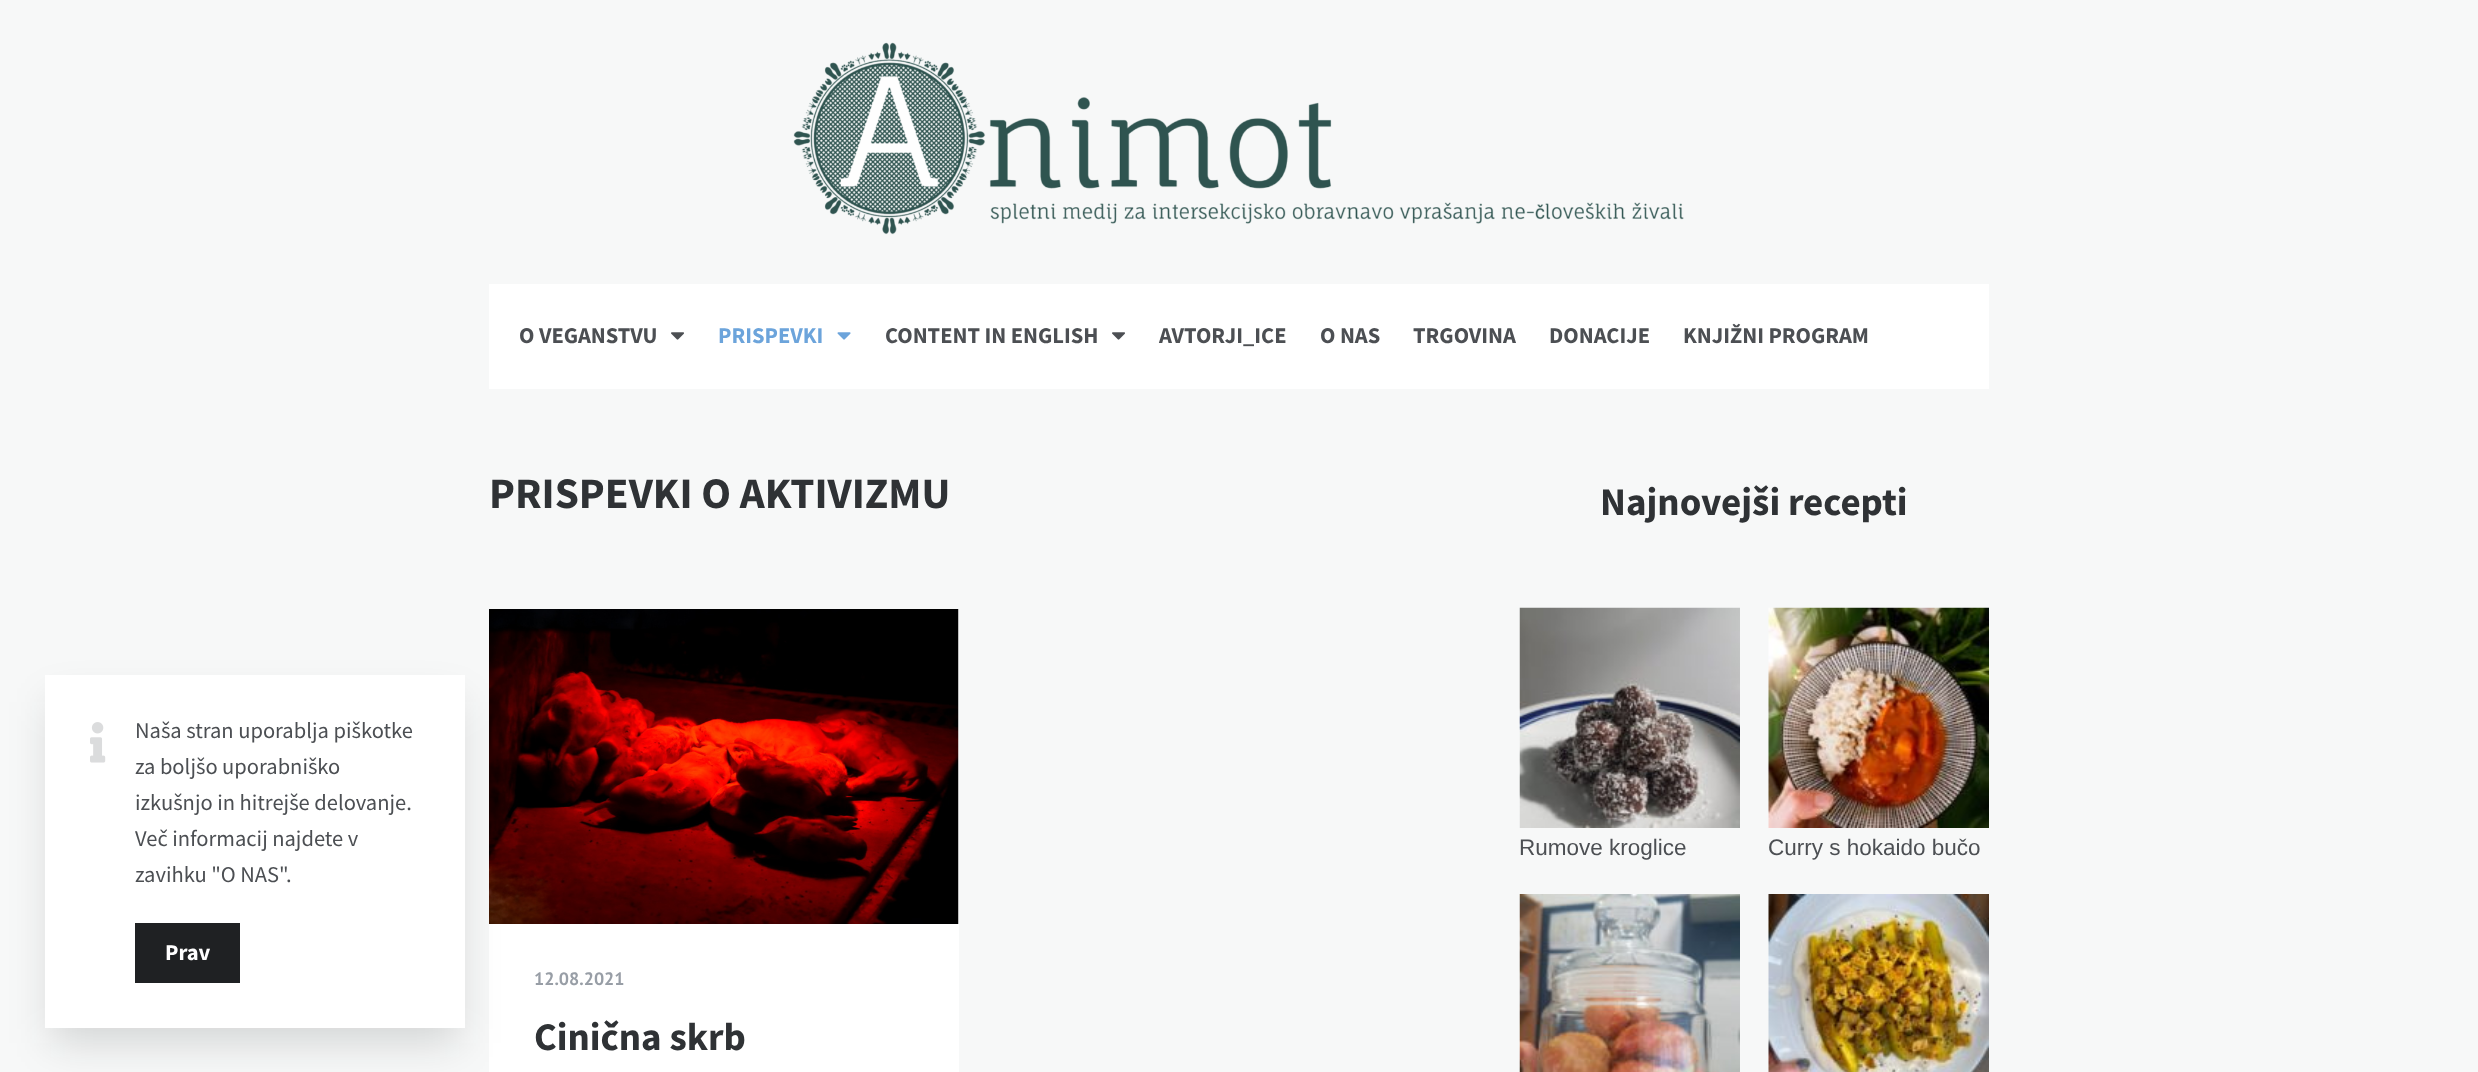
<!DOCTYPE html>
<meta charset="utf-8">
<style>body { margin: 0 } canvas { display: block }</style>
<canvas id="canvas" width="2478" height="1072"></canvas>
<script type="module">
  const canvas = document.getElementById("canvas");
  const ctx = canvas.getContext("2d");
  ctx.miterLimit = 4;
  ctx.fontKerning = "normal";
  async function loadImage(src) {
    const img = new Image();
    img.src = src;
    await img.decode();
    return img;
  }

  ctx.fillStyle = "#f7f8f8";
  ctx.fillRect(0, 0, 2478, 1072);
  ctx.drawImage(await loadImage("img1.png"), 793, 42, 891, 193);
  ctx.fillStyle = "#ffffff";
  ctx.fillRect(489, 284, 1500, 105);
  ctx.font = "bold 22.5px Source Sans Pro";
  ctx.fillStyle = "#4c4f53";
  ctx.fillText("O VEGANSTVU", 519, 343);
  ctx.drawImage(await loadImage("img2.png"), 671, 332, 13, 8);
  ctx.fillStyle = "#6ca4db";
  ctx.fillText("PRISPEVKI", 718, 343);
  ctx.drawImage(await loadImage("img3.png"), 837, 332, 14, 8);
  ctx.fillStyle = "#4c4f53";
  ctx.fillText("CONTENT IN ENGLISH", 885, 343);
  ctx.drawImage(await loadImage("img2.png"), 1112, 332, 13, 8);
  ctx.fillText("AVTORJI_ICE", 1159, 343);
  ctx.fillText("O NAS", 1320, 343);
  ctx.fillText("TRGOVINA", 1413, 343);
  ctx.fillText("DONACIJE", 1549, 343);
  ctx.fillText("KNJIŽNI PROGRAM", 1683, 343);
  ctx.fillStyle = "#ffffff";
  ctx.fillRect(489, 609, 470, 463);
  ctx.drawImage(await loadImage("img5.png"), 489, 609, 470, 315);
  ctx.fillStyle = "rgba(14, 17, 20, 0.15)";
  ctx.filter = "blur(21px)";
  ctx.beginPath();
  ctx.rect(51, 702, 408, 341);
  ctx.fill();
  ctx.filter = "none";
  ctx.fillStyle = "#ffffff";
  ctx.fillRect(45, 675, 420, 353);
  ctx.drawImage(await loadImage("img4.png"), 90, 722, 16, 41);
  ctx.font = "22.5px Source Sans Pro";
  ctx.fillStyle = "#4c4f53";
  ctx.fillText("Naša stran uporablja piškotke", 135, 738);
  ctx.fillText("za boljšo uporabniško", 135, 774);
  ctx.fillText("izkušnjo in hitrejše delovanje.", 135, 810);
  ctx.fillText("Več informacij najdete v", 135, 846);
  ctx.fillText("zavihku \"O NAS\".", 135, 882);
  ctx.fillStyle = "#1f2123";
  ctx.fillRect(135, 923, 105, 60);
  ctx.font = "bold 22.5px Source Sans Pro";
  ctx.fillStyle = "#ffffff";
  ctx.fillText("Prav", 165, 960);
  ctx.font = "bold 43.5px Source Sans Pro";
  ctx.fillStyle = "#2f3235";
  ctx.fillText("PRISPEVKI O AKTIVIZMU", 489, 508);
  ctx.font = "bold 18px PT Sans";
  ctx.fillStyle = "#989ea6";
  ctx.fillText("12.08.2021", 534, 985);
  ctx.font = "bold 39px Source Sans Pro";
  ctx.fillStyle = "#2f3235";
  ctx.fillText("Cinična skrb", 534, 1050);
  ctx.fillText("Najnovejši recepti", 1600, 515);
  ctx.drawImage(await loadImage("img6.png"), 1519, 607, 221, 221);
  ctx.font = "22.5px Liberation Sans";
  ctx.fillStyle = "#4c4f53";
  ctx.fillText("Rumove kroglice", 1519, 855);
  ctx.drawImage(await loadImage("img7.png"), 1768, 607, 221, 221);
  ctx.fillText("Curry s hokaido bučo", 1768, 855);
  ctx.drawImage(await loadImage("img8.png"), 1519, 894, 221, 178);
  ctx.drawImage(await loadImage("img9.png"), 1768, 894, 221, 178);
</script>
